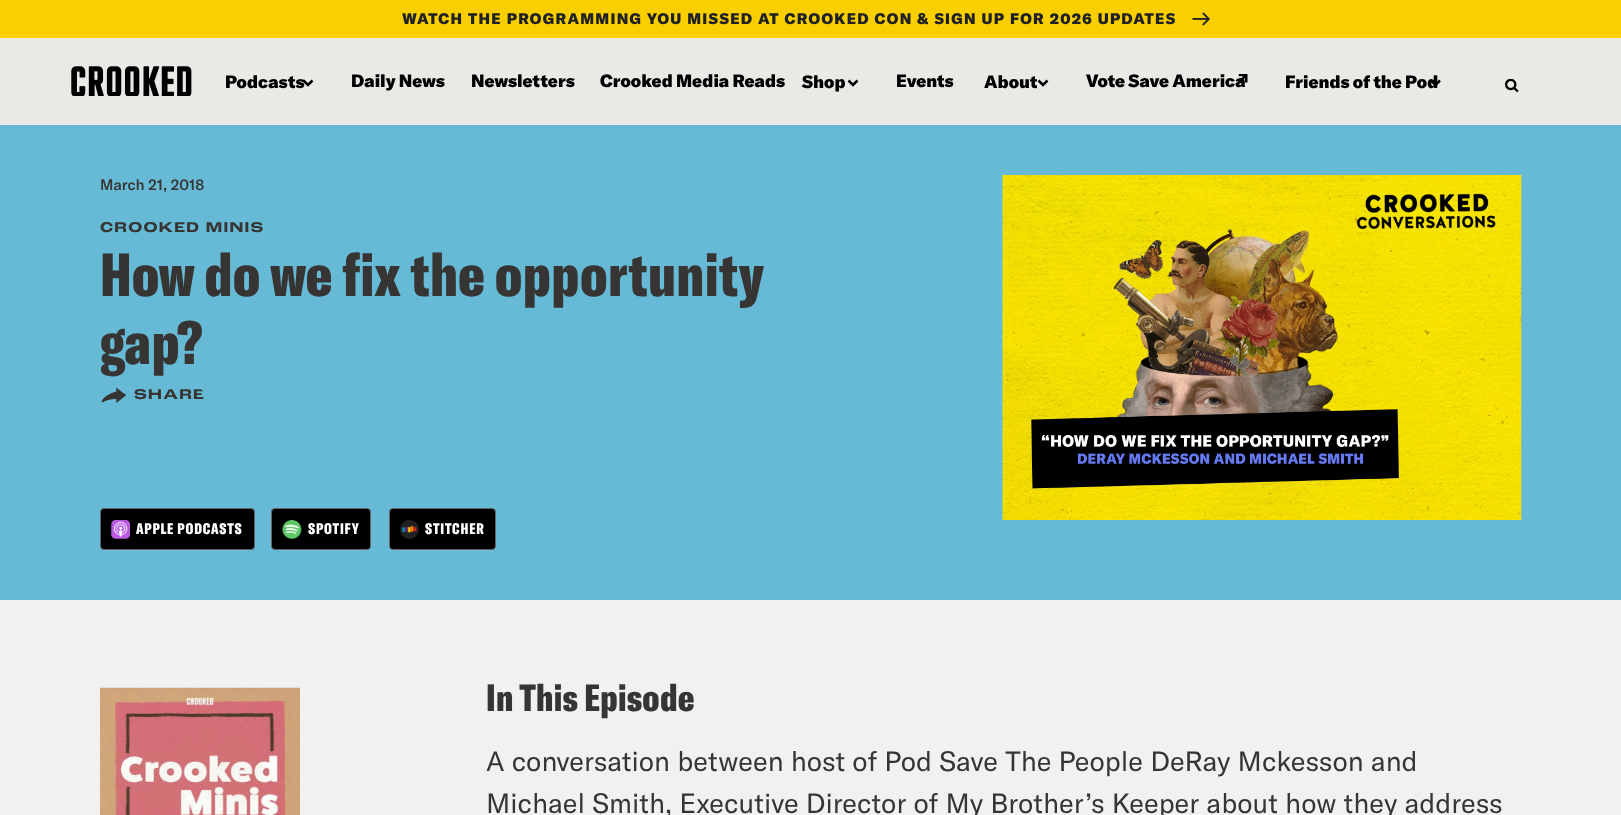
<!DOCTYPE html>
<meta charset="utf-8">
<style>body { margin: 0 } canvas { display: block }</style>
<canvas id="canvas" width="1621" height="815"></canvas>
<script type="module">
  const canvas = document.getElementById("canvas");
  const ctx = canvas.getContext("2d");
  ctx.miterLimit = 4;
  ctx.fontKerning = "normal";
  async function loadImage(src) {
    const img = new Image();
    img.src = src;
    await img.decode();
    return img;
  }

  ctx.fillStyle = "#f1f1f1";
  ctx.fillRect(0, 0, 1621, 815);
  ctx.fillStyle = "#f9cf00";
  ctx.fillRect(0, 0, 1621, 38);
  ctx.letterSpacing = "1.25px";
  ctx.font = "900 15px 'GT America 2'";
  ctx.fillStyle = "#202124";
  ctx.fillText("WATCH THE PROGRAMMING YOU MISSED AT CROOKED CON & SIGN UP FOR 2026 UPDATES", 402, 24);
  ctx.drawImage(await loadImage("img1.png"), 1192, 12, 18, 14);
  ctx.fillStyle = "#ebe9e5";
  ctx.fillRect(0, 38, 1621, 87);
  ctx.drawImage(await loadImage("img2.png"), 71, 66, 121, 30);
  ctx.letterSpacing = "0px";
  ctx.font = "900 17.5px 'GT America 2'";
  ctx.fillStyle = "#000000";
  ctx.fillText("Podcasts", 225, 88);
  ctx.beginPath();
  ctx.moveTo(312.5, 80.5);
  ctx.lineTo(308, 85);
  ctx.lineTo(303.5, 80.5);
  ctx.strokeStyle = "#000000";
  ctx.lineWidth = 2.5;
  ctx.stroke();
  ctx.wordSpacing = "-1px";
  ctx.fillText("Daily News", 351, 87);
  ctx.wordSpacing = "0px";
  ctx.fillText("Newsletters", 471, 87);
  ctx.wordSpacing = "-1px";
  ctx.fillText("Crooked Media Reads", 600, 87);
  ctx.wordSpacing = "0px";
  ctx.fillText("Shop", 802, 88);
  ctx.beginPath();
  ctx.moveTo(857.5, 80.5);
  ctx.lineTo(853, 85);
  ctx.lineTo(848.5, 80.5);
  ctx.stroke();
  ctx.fillText("Events", 896, 87);
  ctx.fillText("About", 984, 88);
  ctx.beginPath();
  ctx.moveTo(1047.5, 80.5);
  ctx.lineTo(1043, 85);
  ctx.lineTo(1038.5, 80.5);
  ctx.stroke();
  ctx.wordSpacing = "-1px";
  ctx.fillText("Vote Save America", 1086, 87);
  ctx.drawImage(await loadImage("img3.png"), 1235, 74, 13, 10);
  ctx.fillText("Friends of the Pod", 1285, 88);
  ctx.beginPath();
  ctx.moveTo(1440, 80.5);
  ctx.lineTo(1435.5, 85);
  ctx.lineTo(1431, 80.5);
  ctx.stroke();
  ctx.drawImage(await loadImage("img4.png"), 1505, 79, 14, 14);
  ctx.fillStyle = "#66bad5";
  ctx.fillRect(0, 125, 1621, 475);
  ctx.wordSpacing = "0px";
  ctx.font = "500 15px GT America";
  ctx.fillStyle = "#373533";
  ctx.fillText("March 21, 2018", 100, 190);
  ctx.letterSpacing = "1.25px";
  ctx.font = "bold 15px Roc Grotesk";
  ctx.fillText("CROOKED MINIS", 100, 232);
  ctx.letterSpacing = "0px";
  ctx.font = "900 60px GT America";
  ctx.fillText("How do we fix the opportunity", 100, 296);
  ctx.fillText("gap?", 100, 364);
  ctx.drawImage(await loadImage("img5.png"), 101, 388, 25, 15);
  ctx.save();
  ctx.beginPath();
  ctx.roundRect(100, 388, 105, 17, 8.5);
  ctx.clip();
  ctx.letterSpacing = "1.25px";
  ctx.font = "bold 15px Roc Grotesk";
  ctx.fillText("SHARE", 134, 399);
  ctx.restore();
  ctx.fillStyle = "#000000";
  ctx.beginPath();
  ctx.roundRect(100.5, 508.5, 154, 41, 3.5);
  ctx.fill();
  ctx.strokeStyle = "#646464";
  ctx.lineWidth = 1;
  ctx.stroke();
  ctx.drawImage(await loadImage("img6.png"), 111, 520, 19, 19);
  ctx.letterSpacing = "0.8px";
  ctx.font = "900 15px GT America";
  ctx.fillStyle = "#ffffff";
  ctx.fillText("APPLE PODCASTS", 136, 534);
  ctx.fillStyle = "#000000";
  ctx.beginPath();
  ctx.roundRect(271.5, 508.5, 99, 41, 3.5);
  ctx.fill();
  ctx.stroke();
  ctx.drawImage(await loadImage("img7.png"), 282, 520, 20, 19);
  ctx.fillStyle = "#ffffff";
  ctx.fillText("SPOTIFY", 308, 534);
  ctx.fillStyle = "#000000";
  ctx.beginPath();
  ctx.roundRect(389.5, 508.5, 106, 41, 3.5);
  ctx.fill();
  ctx.stroke();
  ctx.drawImage(await loadImage("img8.png"), 400, 520, 19, 19);
  ctx.fillStyle = "#ffffff";
  ctx.fillText("STITCHER", 425, 534);
  ctx.drawImage(await loadImage("img9.png"), 1002, 175, 520, 345);
  ctx.drawImage(await loadImage("img10.png"), 100, 687, 200, 128);
  ctx.letterSpacing = "0px";
  ctx.font = "900 37.5px GT America";
  ctx.fillStyle = "#373533";
  ctx.fillText("In This Episode", 486, 711);
  ctx.font = "27.5px GT America";
  ctx.fillText("A conversation between host of Pod Save The People DeRay Mckesson and", 486, 771);
  ctx.fillText("Michael Smith, Executive Director of My Brother’s Keeper about how they address", 486, 813);
</script>
